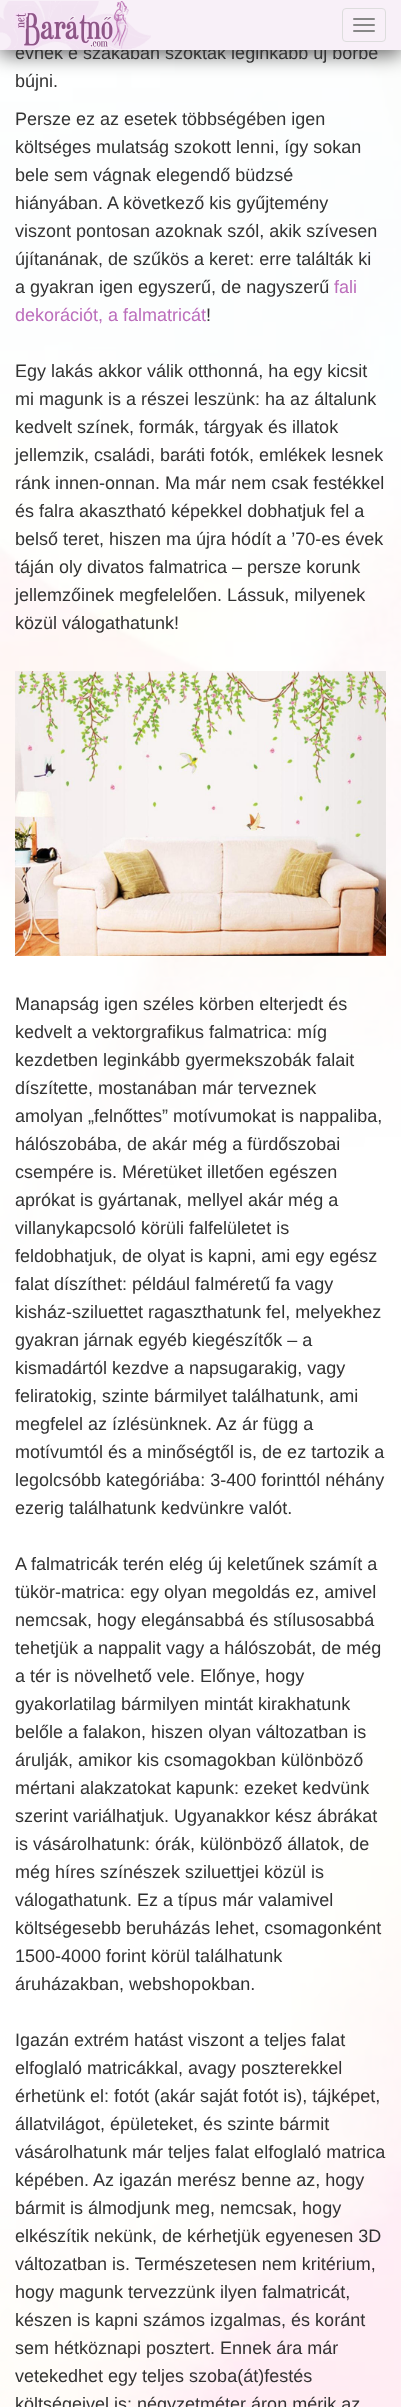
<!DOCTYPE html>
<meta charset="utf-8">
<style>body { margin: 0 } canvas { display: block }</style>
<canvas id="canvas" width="401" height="2407"></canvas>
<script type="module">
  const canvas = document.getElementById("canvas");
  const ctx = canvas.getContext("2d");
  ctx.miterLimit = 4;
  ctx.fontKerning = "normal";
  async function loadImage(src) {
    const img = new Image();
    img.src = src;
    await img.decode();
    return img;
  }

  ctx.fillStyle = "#ffffff";
  ctx.fillRect(0, 0, 401, 2407);
  ctx.drawImage(await loadImage("img1.png"), 0, 50, 401, 2357);
  ctx.fillStyle = "rgba(0, 0, 0, 0.6)";
  ctx.filter = "blur(10px)";
  ctx.beginPath();
  ctx.rect(0, 5, 401, 50);
  ctx.fill();
  ctx.filter = "none";
  ctx.font = "18px Liberation Sans";
  ctx.fillStyle = "#333333";
  ctx.fillText("évnek e szakában szoktak leginkább új bőrbe", 15, 59);
  ctx.fillStyle = "#f8f0f8";
  ctx.fillRect(0, 0, 401, 50);
  ctx.drawImage(await loadImage("img2.png"), 0, 1, 151, 49);
  ctx.beginPath();
  ctx.roundRect(342.5, 8.5, 43, 33, 3.5);
  ctx.strokeStyle = "#dddddd";
  ctx.stroke();
  ctx.fillStyle = "#888888";
  ctx.beginPath();
  ctx.roundRect(353, 18, 22, 2, 1);
  ctx.fill();
  ctx.beginPath();
  ctx.roundRect(353, 24, 22, 2, 1);
  ctx.fill();
  ctx.beginPath();
  ctx.roundRect(353, 30, 22, 2, 1);
  ctx.fill();
  ctx.fillStyle = "#333333";
  ctx.fillText("bújni.", 15, 87);
  ctx.fillText("Persze ez az esetek többségében igen", 15, 125);
  ctx.fillText("költséges mulatság szokott lenni, így sokan", 15, 153);
  ctx.fillText("bele sem vágnak elegendő büdzsé", 15, 181);
  ctx.fillText("hiányában. A következő kis gyűjtemény", 15, 209);
  ctx.fillText("viszont pontosan azoknak szól, akik szívesen", 15, 237);
  ctx.fillText("újítanának, de szűkös a keret: erre találták ki", 15, 265);
  ctx.fillText("a gyakran igen egyszerű, de nagyszerű", 15, 293);
  ctx.fillStyle = "#bc6ebc";
  ctx.fillText("fali", 334, 293);
  ctx.fillText("dekorációt, a falmatricát", 15, 321);
  ctx.fillStyle = "#333333";
  ctx.fillText("!", 206, 321);
  ctx.fillText("Egy lakás akkor válik otthonná, ha egy kicsit", 15, 377);
  ctx.fillText("mi magunk is a részei leszünk: ha az általunk", 15, 405);
  ctx.fillText("kedvelt színek, formák, tárgyak és illatok", 15, 433);
  ctx.fillText("jellemzik, családi, baráti fotók, emlékek lesnek", 15, 461);
  ctx.fillText("ránk innen-onnan. Ma már nem csak festékkel", 15, 489);
  ctx.fillText("és falra akasztható képekkel dobhatjuk fel a", 15, 517);
  ctx.fillText("belső teret, hiszen ma újra hódít a ’70-es évek", 15, 545);
  ctx.fillText("táján oly divatos falmatrica – persze korunk", 15, 573);
  ctx.fillText("jellemzőinek megfelelően. Lássuk, milyenek", 15, 601);
  ctx.fillText("közül válogathatunk!", 15, 629);
  ctx.drawImage(await loadImage("img3.png"), 15, 671, 371, 285);
  ctx.fillText("Manapság igen széles körben elterjedt és", 15, 1010);
  ctx.fillText("kedvelt a vektorgrafikus falmatrica: míg", 15, 1038);
  ctx.fillText("kezdetben leginkább gyermekszobák falait", 15, 1066);
  ctx.fillText("díszítette, mostanában már terveznek", 15, 1094);
  ctx.fillText("amolyan „felnőttes” motívumokat is nappaliba,", 15, 1122);
  ctx.fillText("hálószobába, de akár még a fürdőszobai", 15, 1150);
  ctx.fillText("csempére is. Méretüket illetően egészen", 15, 1178);
  ctx.fillText("aprókat is gyártanak, mellyel akár még a", 15, 1206);
  ctx.fillText("villanykapcsoló körüli falfelületet is", 15, 1234);
  ctx.fillText("feldobhatjuk, de olyat is kapni, ami egy egész", 15, 1262);
  ctx.fillText("falat díszíthet: például falméretű fa vagy", 15, 1290);
  ctx.fillText("kisház-sziluettet ragaszthatunk fel, melyekhez", 15, 1318);
  ctx.fillText("gyakran járnak egyéb kiegészítők – a", 15, 1346);
  ctx.fillText("kismadártól kezdve a napsugarakig, vagy", 15, 1374);
  ctx.fillText("feliratokig, szinte bármilyet találhatunk, ami", 15, 1402);
  ctx.fillText("megfelel az ízlésünknek. Az ár függ a", 15, 1430);
  ctx.fillText("motívumtól és a minőségtől is, de ez tartozik a", 15, 1458);
  ctx.fillText("legolcsóbb kategóriába: 3-400 forinttól néhány", 15, 1486);
  ctx.fillText("ezerig találhatunk kedvünkre valót.", 15, 1514);
  ctx.fillText("A falmatricák terén elég új keletűnek számít a", 15, 1570);
  ctx.fillText("tükör-matrica: egy olyan megoldás ez, amivel", 15, 1598);
  ctx.fillText("nemcsak, hogy elegánsabbá és stílusosabbá", 15, 1626);
  ctx.fillText("tehetjük a nappalit vagy a hálószobát, de még", 15, 1654);
  ctx.fillText("a tér is növelhető vele. Előnye, hogy", 15, 1682);
  ctx.fillText("gyakorlatilag bármilyen mintát kirakhatunk", 15, 1710);
  ctx.fillText("belőle a falakon, hiszen olyan változatban is", 15, 1738);
  ctx.fillText("árulják, amikor kis csomagokban különböző", 15, 1766);
  ctx.fillText("mértani alakzatokat kapunk: ezeket kedvünk", 15, 1794);
  ctx.fillText("szerint variálhatjuk. Ugyanakkor kész ábrákat", 15, 1822);
  ctx.fillText("is vásárolhatunk: órák, különböző állatok, de", 15, 1850);
  ctx.fillText("még híres színészek sziluettjei közül is", 15, 1878);
  ctx.fillText("válogathatunk. Ez a típus már valamivel", 15, 1906);
  ctx.fillText("költségesebb beruházás lehet, csomagonként", 15, 1934);
  ctx.fillText("1500-4000 forint körül találhatunk", 15, 1962);
  ctx.fillText("áruházakban, webshopokban.", 15, 1990);
  ctx.fillText("Igazán extrém hatást viszont a teljes falat", 15, 2046);
  ctx.fillText("elfoglaló matricákkal, avagy poszterekkel", 15, 2074);
  ctx.fillText("érhetünk el: fotót (akár saját fotót is), tájképet,", 15, 2102);
  ctx.fillText("állatvilágot, épületeket, és szinte bármit", 15, 2130);
  ctx.fillText("vásárolhatunk már teljes falat elfoglaló matrica", 15, 2158);
  ctx.fillText("képében. Az igazán merész benne az, hogy", 15, 2186);
  ctx.fillText("bármit is álmodjunk meg, nemcsak, hogy", 15, 2214);
  ctx.fillText("elkészítik nekünk, de kérhetjük egyenesen 3D", 15, 2242);
  ctx.fillText("változatban is. Természetesen nem kritérium,", 15, 2270);
  ctx.fillText("hogy magunk tervezzünk ilyen falmatricát,", 15, 2298);
  ctx.fillText("készen is kapni számos izgalmas, és koránt", 15, 2326);
  ctx.fillText("sem hétköznapi posztert. Ennek ára már", 15, 2354);
  ctx.fillText("vetekedhet egy teljes szoba(át)festés", 15, 2382);
  ctx.fillText("költségeivel is: négyzetméter áron mérik az", 15, 2410);
</script>
